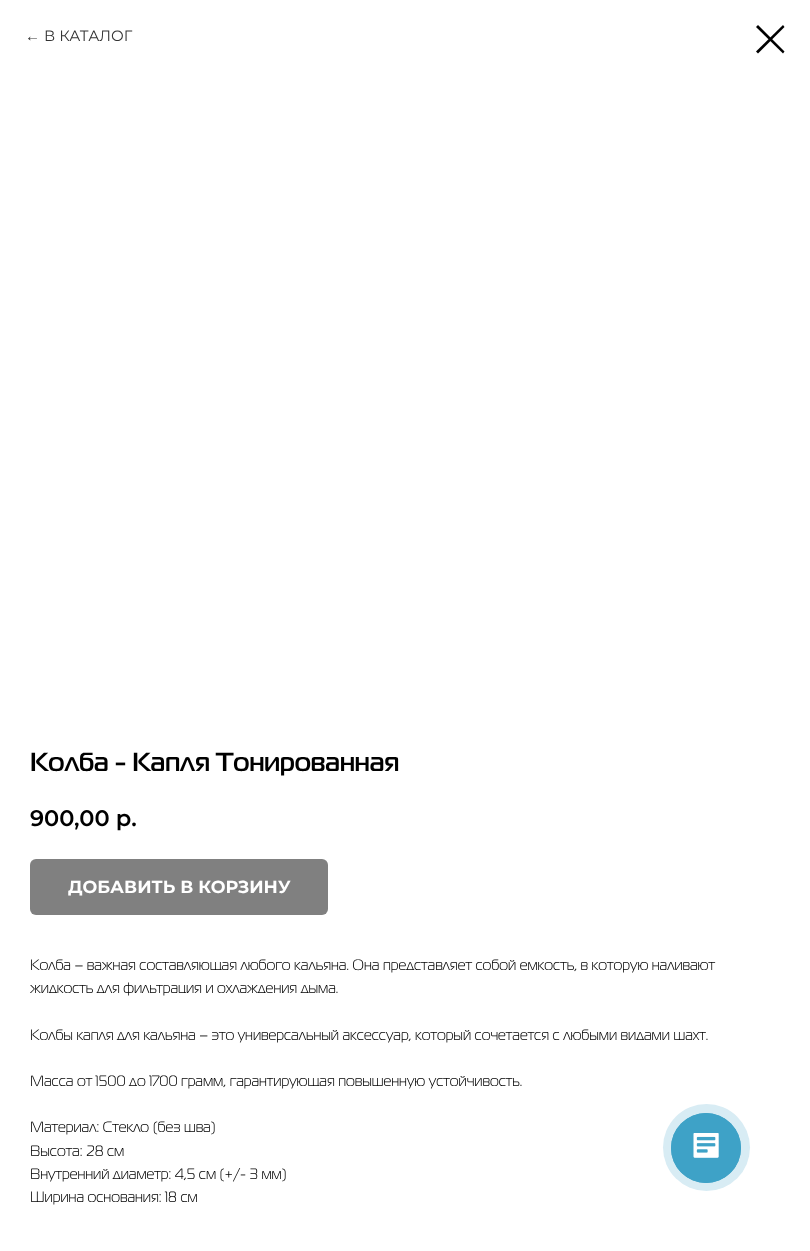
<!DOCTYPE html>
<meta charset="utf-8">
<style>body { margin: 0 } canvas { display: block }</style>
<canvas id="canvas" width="810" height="1251"></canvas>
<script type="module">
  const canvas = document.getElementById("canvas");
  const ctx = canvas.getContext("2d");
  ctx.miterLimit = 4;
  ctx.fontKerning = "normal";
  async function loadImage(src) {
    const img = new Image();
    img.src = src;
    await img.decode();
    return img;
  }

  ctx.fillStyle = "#ffffff";
  ctx.fillRect(0, 0, 810, 1251);
  ctx.font = "15px Liberation Sans";
  ctx.fillStyle = "#333333";
  ctx.fillText("←", 25, 41);
  ctx.font = "15px Montserrat";
  ctx.fillText("В КАТАЛОГ", 44, 41);
  ctx.fillStyle = "#000000";
  ctx.beginPath();
  ctx.moveTo(756, 27);
  ctx.lineTo(758, 25);
  ctx.lineTo(784.5, 51.5);
  ctx.lineTo(783, 53.5);
  ctx.closePath();
  ctx.fill("evenodd");
  ctx.beginPath();
  ctx.moveTo(783, 25);
  ctx.lineTo(784.5, 27);
  ctx.lineTo(758, 53.5);
  ctx.lineTo(756, 51.5);
  ctx.closePath();
  ctx.fill("evenodd");
  ctx.font = "bold 26.25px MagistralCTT";
  ctx.fillText("Колба - Капля Тонированная", 30, 771);
  ctx.font = "600 22.5px Montserrat";
  ctx.fillText("900,00 р.", 30, 826);
  ctx.fillStyle = "#808080";
  ctx.beginPath();
  ctx.roundRect(30, 859, 298, 56, 6);
  ctx.fill();
  ctx.font = "bold 17.5px Montserrat";
  ctx.fillStyle = "#ffffff";
  ctx.fillText("ДОБАВИТЬ В КОРЗИНУ", 68, 893);
  ctx.font = "15px MagistralCTT";
  ctx.fillStyle = "#000000";
  ctx.fillText("Колба – важная составляющая любого кальяна. Она представляет собой емкость, в которую наливают", 30, 970);
  ctx.fillText("жидкость для фильтрация и охлаждения дыма.", 30, 993);
  ctx.fillText("Колбы капля для кальяна – это универсальный аксессуар, который сочетается с любыми видами шахт.", 30, 1040);
  ctx.fillText("Масса от 1500 до 1700 грамм, гарантирующая повышенную устойчивость.", 30, 1086);
  ctx.fillText("Материал: Стекло (без шва)", 30, 1132);
  ctx.fillText("Высота: 28 см", 30, 1156);
  ctx.fillText("Внутренний диаметр: 4,5 см (+/- 3 мм)", 30, 1179);
  ctx.fillText("Ширина основания: 18 см", 30, 1202);
  ctx.fillStyle = "#d8ecf4";
  ctx.beginPath();
  ctx.arc(706.5, 1147.5, 43.5, 0, Math.PI * 2);
  ctx.fill();
  ctx.beginPath();
  ctx.arc(706, 1148, 34.5, 0, Math.PI * 2);
  ctx.strokeStyle = "#3ea2c7";
  ctx.stroke();
  ctx.fillStyle = "#3ea2c7";
  ctx.beginPath();
  ctx.arc(706, 1148, 35, 0, Math.PI * 2);
  ctx.fill();
  ctx.drawImage(await loadImage("img1.png"), 693, 1133, 26, 25);
</script>
